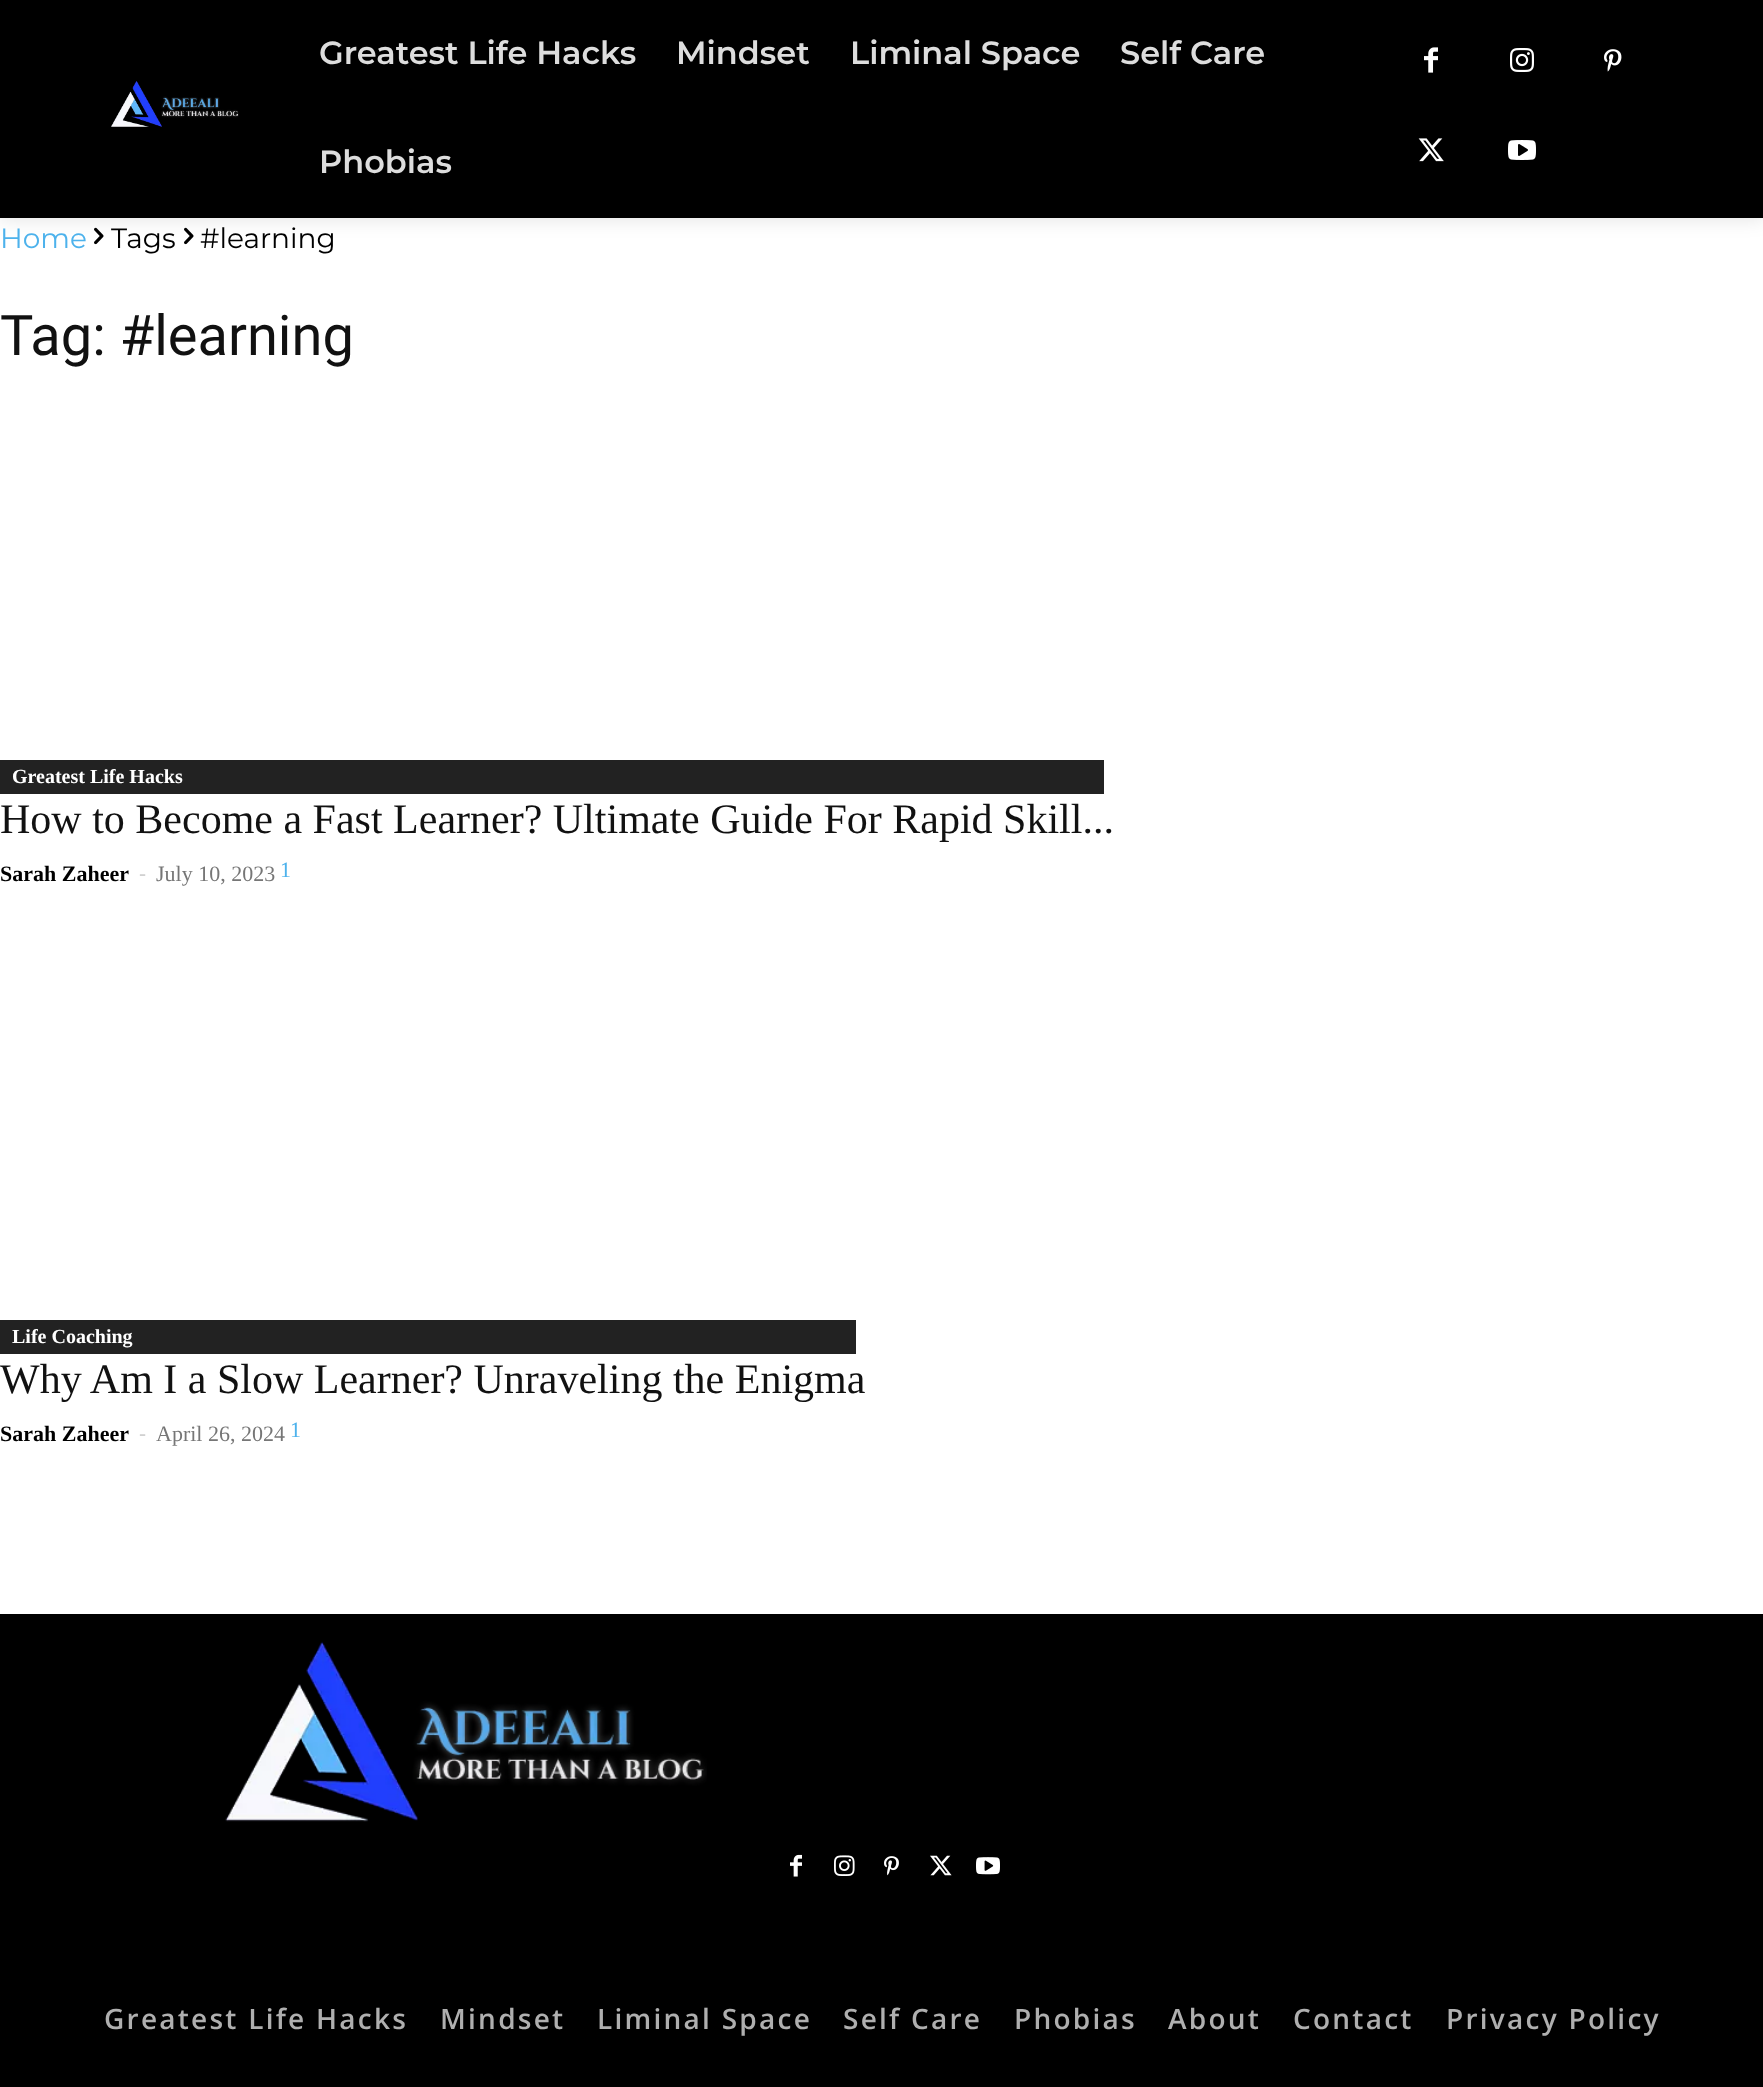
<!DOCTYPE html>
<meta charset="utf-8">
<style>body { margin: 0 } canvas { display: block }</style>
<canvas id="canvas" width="1763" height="2087"></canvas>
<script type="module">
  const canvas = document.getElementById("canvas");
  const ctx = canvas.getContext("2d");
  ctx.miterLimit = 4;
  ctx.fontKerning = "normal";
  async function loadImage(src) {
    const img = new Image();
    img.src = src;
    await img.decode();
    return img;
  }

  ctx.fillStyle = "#ffffff";
  ctx.fillRect(0, 0, 1763, 2087);
  ctx.drawImage(await loadImage("img7.png"), 94, 227, 10, 18);
  ctx.drawImage(await loadImage("img7.png"), 184, 227, 10, 18);
  ctx.fillStyle = "rgba(0, 0, 0, 0.12)";
  ctx.filter = "blur(10px)";
  ctx.beginPath();
  ctx.rect(0, 0, 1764, 218);
  ctx.fill();
  ctx.filter = "none";
  ctx.fillStyle = "#000000";
  ctx.fillRect(0, 0, 1763, 218);
  ctx.drawImage(await loadImage("img1.png"), 111, 81, 128, 46);
  ctx.font = "600 32px Montserrat";
  ctx.fillStyle = "#dddddd";
  ctx.fillText("Greatest Life Hacks", 319, 64);
  ctx.fillText("Mindset", 676, 64);
  ctx.fillText("Liminal Space", 850, 64);
  ctx.fillText("Self Care", 1120, 64);
  ctx.fillText("Phobias", 319, 173);
  ctx.drawImage(await loadImage("img2.png"), 1424, 47, 14, 26);
  ctx.drawImage(await loadImage("img3.png"), 1510, 48, 24, 24);
  ctx.drawImage(await loadImage("img4.png"), 1604, 49, 18, 23);
  ctx.drawImage(await loadImage("img5.png"), 1418, 138, 26, 24);
  ctx.drawImage(await loadImage("img6.png"), 1508, 140, 28, 20);
  ctx.font = "28px Montserrat";
  ctx.fillStyle = "#4db2ec";
  ctx.fillText("Home", 0, 248);
  ctx.fillStyle = "#000000";
  ctx.fillText("Tags", 111, 248);
  ctx.fillText("#learning", 200, 248);
  ctx.font = "56px Roboto";
  ctx.fillStyle = "#111111";
  ctx.fillText("Tag: #learning", 0, 355);
  ctx.fillStyle = "#222222";
  ctx.fillRect(0, 760, 1104, 34);
  ctx.font = "bold 20px Liberation Serif";
  ctx.fillStyle = "#ffffff";
  ctx.fillText("Greatest Life Hacks", 12, 783);
  ctx.font = "42px Liberation Serif";
  ctx.fillStyle = "#111111";
  ctx.fillText("How to Become a Fast Learner? Ultimate Guide For Rapid Skill...", 0, 833);
  ctx.font = "bold 22px Liberation Serif";
  ctx.fillStyle = "#000000";
  ctx.fillText("Sarah Zaheer", 0, 881);
  ctx.font = "22px Open Sans";
  ctx.fillStyle = "#cccccc";
  ctx.fillText("-", 139, 881);
  ctx.font = "22px Liberation Serif";
  ctx.fillStyle = "#767676";
  ctx.fillText("July 10, 2023", 156, 881);
  ctx.fillStyle = "#4db2ec";
  ctx.fillText("1", 280, 877);
  ctx.fillStyle = "#222222";
  ctx.fillRect(0, 1320, 856, 34);
  ctx.font = "bold 20px Liberation Serif";
  ctx.fillStyle = "#ffffff";
  ctx.fillText("Life Coaching", 12, 1343);
  ctx.font = "42px Liberation Serif";
  ctx.fillStyle = "#111111";
  ctx.fillText("Why Am I a Slow Learner? Unraveling the Enigma", 0, 1393);
  ctx.font = "bold 22px Liberation Serif";
  ctx.fillStyle = "#000000";
  ctx.fillText("Sarah Zaheer", 0, 1441);
  ctx.font = "22px Open Sans";
  ctx.fillStyle = "#cccccc";
  ctx.fillText("-", 139, 1441);
  ctx.font = "22px Liberation Serif";
  ctx.fillStyle = "#767676";
  ctx.fillText("April 26, 2024", 156, 1441);
  ctx.fillStyle = "#4db2ec";
  ctx.fillText("1", 290, 1437);
  ctx.fillStyle = "#000000";
  ctx.fillRect(0, 1614, 1763, 473);
  ctx.drawImage(await loadImage("img8.png"), 225, 1641, 482, 181);
  ctx.drawImage(await loadImage("img9.png"), 790, 1854, 12, 23);
  ctx.drawImage(await loadImage("img10.png"), 834, 1855, 21, 21);
  ctx.drawImage(await loadImage("img11.png"), 884, 1856, 15, 20);
  ctx.drawImage(await loadImage("img12.png"), 930, 1855, 22, 21);
  ctx.drawImage(await loadImage("img13.png"), 976, 1857, 24, 18);
  ctx.letterSpacing = "2.25px";
  ctx.font = "600 28px Open Sans";
  ctx.fillStyle = "#afafaf";
  ctx.fillText("Greatest Life Hacks", 104, 2029);
  ctx.fillText("Mindset", 440, 2029);
  ctx.fillText("Liminal Space", 597, 2029);
  ctx.fillText("Self Care", 843, 2029);
  ctx.fillText("Phobias", 1014, 2029);
  ctx.fillText("About", 1168, 2029);
  ctx.fillText("Contact", 1293, 2029);
  ctx.fillText("Privacy Policy", 1446, 2029);
</script>
